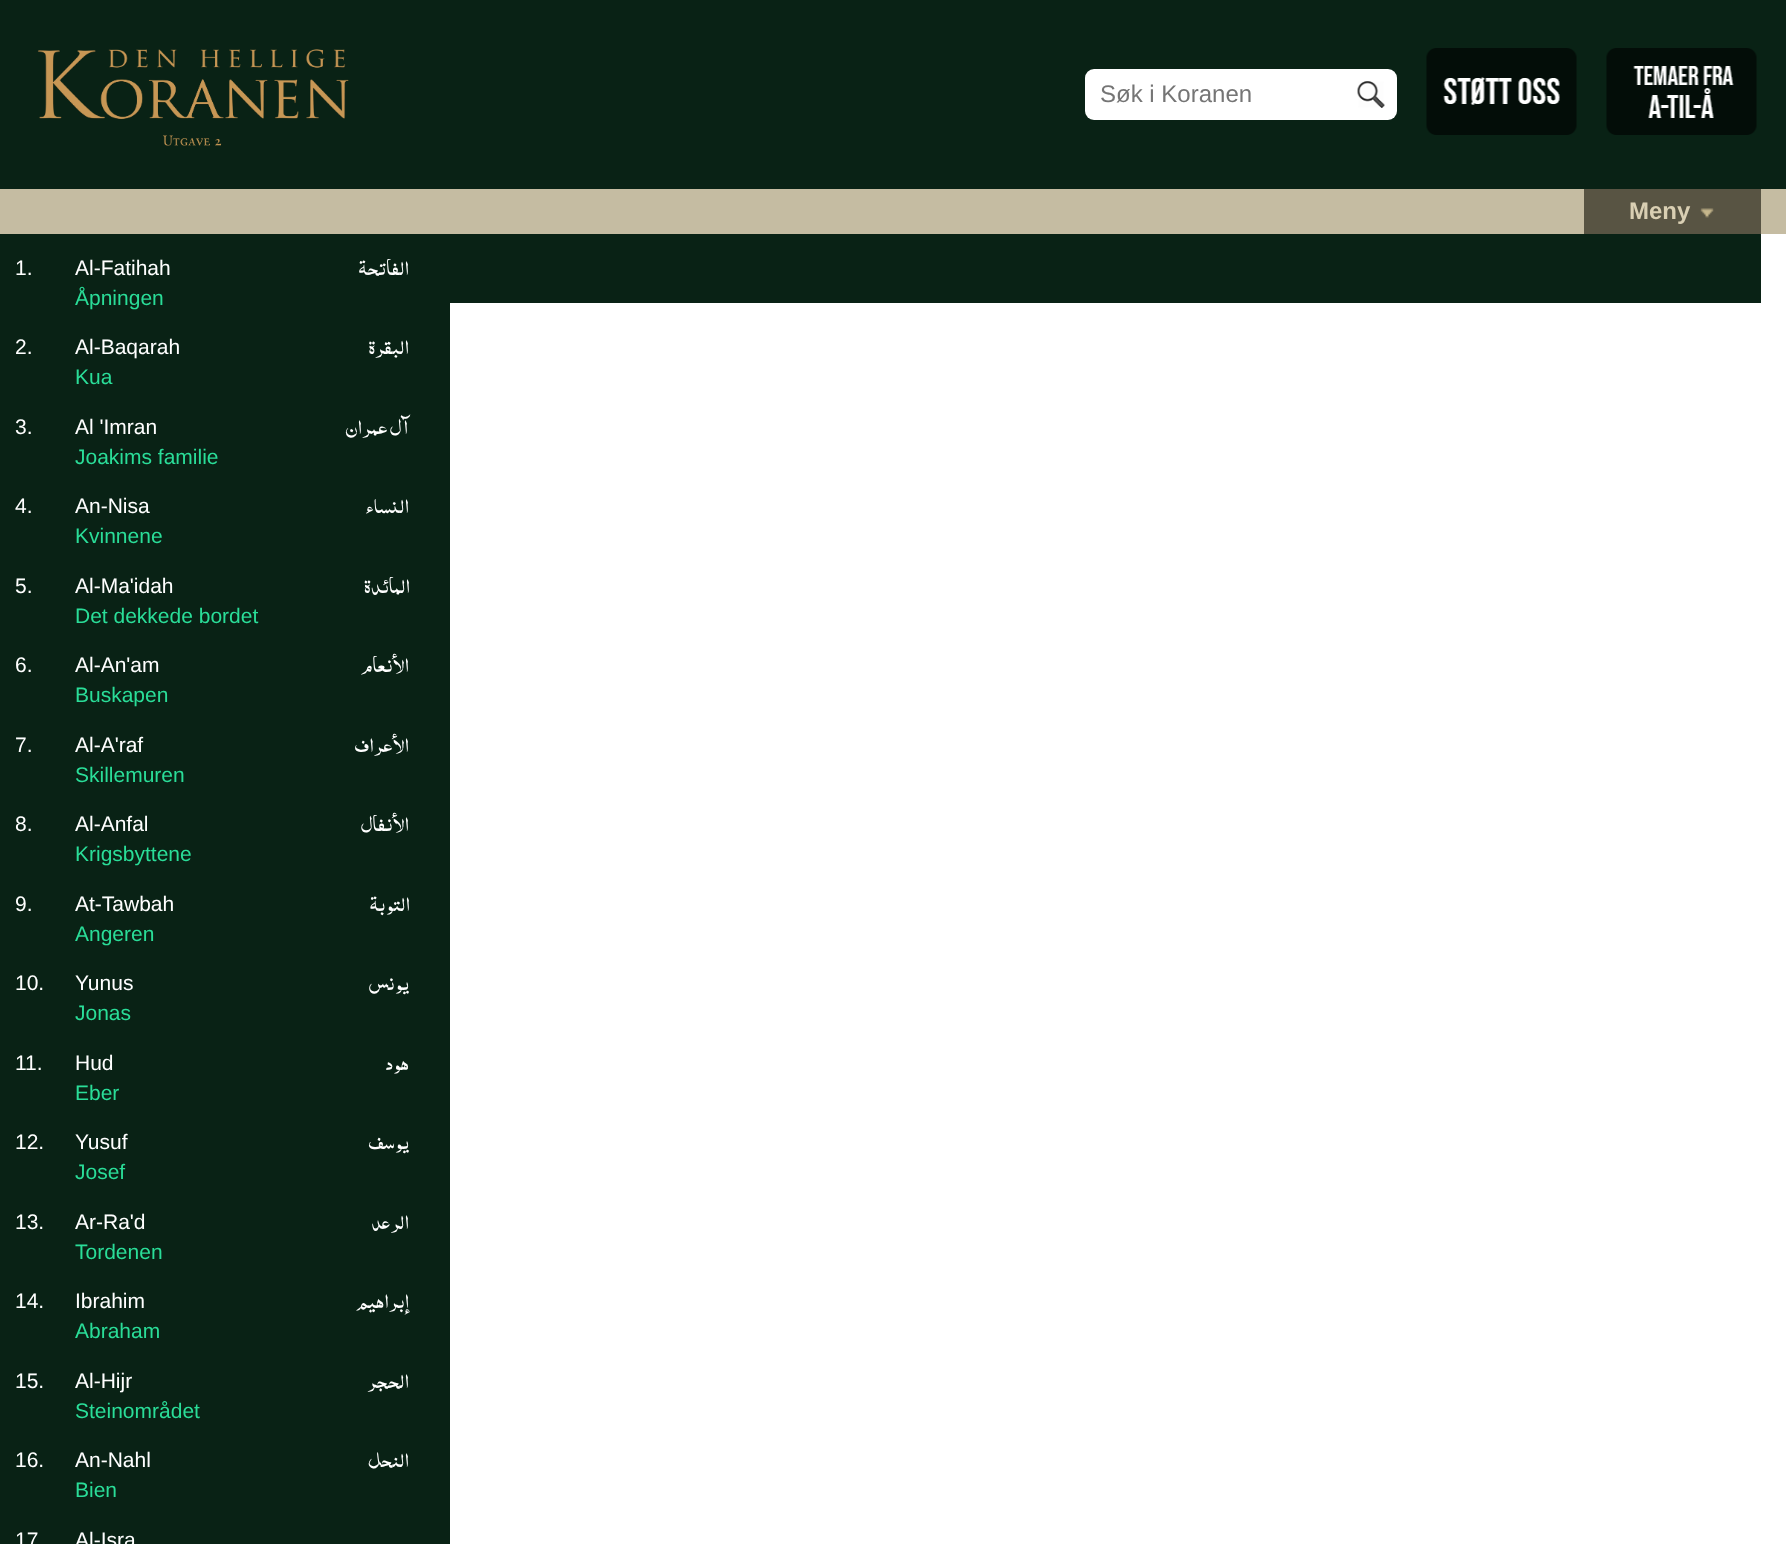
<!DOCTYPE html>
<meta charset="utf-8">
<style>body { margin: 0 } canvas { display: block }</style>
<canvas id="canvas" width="1786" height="1544"></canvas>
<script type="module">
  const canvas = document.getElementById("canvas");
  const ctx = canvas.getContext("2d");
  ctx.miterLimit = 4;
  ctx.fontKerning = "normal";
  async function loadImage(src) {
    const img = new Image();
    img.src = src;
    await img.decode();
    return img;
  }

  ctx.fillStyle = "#ffffff";
  ctx.fillRect(0, 0, 1786, 1544);
  ctx.fillStyle = "#092215";
  ctx.fillRect(0, 0, 1786, 189);
  ctx.drawImage(await loadImage("img1.png"), 37, 49, 312, 97);
  ctx.fillStyle = "#ffffff";
  ctx.beginPath();
  ctx.roundRect(1085, 69, 312, 51, 9);
  ctx.fill();
  ctx.font = "24px Liberation Sans";
  ctx.fillStyle = "#757575";
  ctx.fillText("Søk i Koranen", 1100, 102);
  ctx.drawImage(await loadImage("img2.png"), 1357, 81, 28, 27);
  ctx.drawImage(await loadImage("img3.png"), 1426, 48, 151, 87);
  ctx.drawImage(await loadImage("img4.png"), 1606, 48, 151, 87);
  ctx.fillStyle = "#c5bca2";
  ctx.fillRect(0, 189, 1786, 45);
  ctx.fillStyle = "#585443";
  ctx.fillRect(1584, 189, 177, 45);
  ctx.font = "bold 24px Liberation Sans";
  ctx.fillStyle = "#d9cfb3";
  ctx.fillText("Meny", 1629, 219);
  ctx.drawImage(await loadImage("img5.png"), 1700, 208, 14, 10);
  ctx.fillStyle = "#092215";
  ctx.fillRect(0, 234, 450, 1310);
  ctx.font = "21px Liberation Sans";
  ctx.fillStyle = "#ffffff";
  ctx.fillText("1.", 15, 275);
  ctx.fillText("Al-Fatihah", 75, 275);
  ctx.direction = "rtl";
  ctx.font = "21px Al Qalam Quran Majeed";
  ctx.fillText("الفاتحة", 409, 275);
  ctx.direction = "ltr";
  ctx.font = "21px Liberation Sans";
  ctx.fillStyle = "#2add98";
  ctx.fillText("Åpningen", 75, 305);
  ctx.fillStyle = "#ffffff";
  ctx.fillText("2.", 15, 354);
  ctx.fillText("Al-Baqarah", 75, 354);
  ctx.direction = "rtl";
  ctx.font = "21px Al Qalam Quran Majeed";
  ctx.fillText("البقرة", 409, 354);
  ctx.direction = "ltr";
  ctx.font = "21px Liberation Sans";
  ctx.fillStyle = "#2add98";
  ctx.fillText("Kua", 75, 384);
  ctx.fillStyle = "#ffffff";
  ctx.fillText("3.", 15, 434);
  ctx.fillText("Al 'Imran", 75, 434);
  ctx.direction = "rtl";
  ctx.font = "21px Al Qalam Quran Majeed";
  ctx.fillText("آل عمران", 409, 434);
  ctx.direction = "ltr";
  ctx.font = "21px Liberation Sans";
  ctx.fillStyle = "#2add98";
  ctx.fillText("Joakims familie", 75, 464);
  ctx.fillStyle = "#ffffff";
  ctx.fillText("4.", 15, 513);
  ctx.fillText("An-Nisa", 75, 513);
  ctx.direction = "rtl";
  ctx.font = "21px Al Qalam Quran Majeed";
  ctx.fillText("النساء", 409, 513);
  ctx.direction = "ltr";
  ctx.font = "21px Liberation Sans";
  ctx.fillStyle = "#2add98";
  ctx.fillText("Kvinnene", 75, 543);
  ctx.fillStyle = "#ffffff";
  ctx.fillText("5.", 15, 593);
  ctx.fillText("Al-Ma'idah", 75, 593);
  ctx.direction = "rtl";
  ctx.font = "21px Al Qalam Quran Majeed";
  ctx.fillText("المائدة", 410, 593);
  ctx.direction = "ltr";
  ctx.font = "21px Liberation Sans";
  ctx.fillStyle = "#2add98";
  ctx.fillText("Det dekkede bordet", 75, 623);
  ctx.fillStyle = "#ffffff";
  ctx.fillText("6.", 15, 672);
  ctx.fillText("Al-An'am", 75, 672);
  ctx.direction = "rtl";
  ctx.font = "21px Al Qalam Quran Majeed";
  ctx.fillText("الأنعام", 409, 672);
  ctx.direction = "ltr";
  ctx.font = "21px Liberation Sans";
  ctx.fillStyle = "#2add98";
  ctx.fillText("Buskapen", 75, 702);
  ctx.fillStyle = "#ffffff";
  ctx.fillText("7.", 15, 752);
  ctx.fillText("Al-A'raf", 75, 752);
  ctx.direction = "rtl";
  ctx.font = "21px Al Qalam Quran Majeed";
  ctx.fillText("الأعراف", 409, 752);
  ctx.direction = "ltr";
  ctx.font = "21px Liberation Sans";
  ctx.fillStyle = "#2add98";
  ctx.fillText("Skillemuren", 75, 782);
  ctx.fillStyle = "#ffffff";
  ctx.fillText("8.", 15, 831);
  ctx.fillText("Al-Anfal", 75, 831);
  ctx.direction = "rtl";
  ctx.font = "21px Al Qalam Quran Majeed";
  ctx.fillText("الأنفال", 409, 831);
  ctx.direction = "ltr";
  ctx.font = "21px Liberation Sans";
  ctx.fillStyle = "#2add98";
  ctx.fillText("Krigsbyttene", 75, 861);
  ctx.fillStyle = "#ffffff";
  ctx.fillText("9.", 15, 911);
  ctx.fillText("At-Tawbah", 75, 911);
  ctx.direction = "rtl";
  ctx.font = "21px Al Qalam Quran Majeed";
  ctx.fillText("التوبة", 410, 911);
  ctx.direction = "ltr";
  ctx.font = "21px Liberation Sans";
  ctx.fillStyle = "#2add98";
  ctx.fillText("Angeren", 75, 941);
  ctx.fillStyle = "#ffffff";
  ctx.fillText("10.", 15, 990);
  ctx.fillText("Yunus", 75, 990);
  ctx.direction = "rtl";
  ctx.font = "21px Al Qalam Quran Majeed";
  ctx.fillText("يونس", 409, 990);
  ctx.direction = "ltr";
  ctx.font = "21px Liberation Sans";
  ctx.fillStyle = "#2add98";
  ctx.fillText("Jonas", 75, 1020);
  ctx.fillStyle = "#ffffff";
  ctx.fillText("11.", 15, 1070);
  ctx.fillText("Hud", 75, 1070);
  ctx.direction = "rtl";
  ctx.font = "21px Al Qalam Quran Majeed";
  ctx.fillText("هود", 409, 1070);
  ctx.direction = "ltr";
  ctx.font = "21px Liberation Sans";
  ctx.fillStyle = "#2add98";
  ctx.fillText("Eber", 75, 1100);
  ctx.fillStyle = "#ffffff";
  ctx.fillText("12.", 15, 1149);
  ctx.fillText("Yusuf", 75, 1149);
  ctx.direction = "rtl";
  ctx.font = "21px Al Qalam Quran Majeed";
  ctx.fillText("يوسف", 409, 1149);
  ctx.direction = "ltr";
  ctx.font = "21px Liberation Sans";
  ctx.fillStyle = "#2add98";
  ctx.fillText("Josef", 75, 1179);
  ctx.fillStyle = "#ffffff";
  ctx.fillText("13.", 15, 1229);
  ctx.fillText("Ar-Ra'd", 75, 1229);
  ctx.direction = "rtl";
  ctx.font = "21px Al Qalam Quran Majeed";
  ctx.fillText("الرعد", 409, 1229);
  ctx.direction = "ltr";
  ctx.font = "21px Liberation Sans";
  ctx.fillStyle = "#2add98";
  ctx.fillText("Tordenen", 75, 1259);
  ctx.fillStyle = "#ffffff";
  ctx.fillText("14.", 15, 1308);
  ctx.fillText("Ibrahim", 75, 1308);
  ctx.direction = "rtl";
  ctx.font = "21px Al Qalam Quran Majeed";
  ctx.fillText("إبراهيم", 409, 1308);
  ctx.direction = "ltr";
  ctx.font = "21px Liberation Sans";
  ctx.fillStyle = "#2add98";
  ctx.fillText("Abraham", 75, 1338);
  ctx.fillStyle = "#ffffff";
  ctx.fillText("15.", 15, 1388);
  ctx.fillText("Al-Hijr", 75, 1388);
  ctx.direction = "rtl";
  ctx.font = "21px Al Qalam Quran Majeed";
  ctx.fillText("الحجر", 409, 1388);
  ctx.direction = "ltr";
  ctx.font = "21px Liberation Sans";
  ctx.fillStyle = "#2add98";
  ctx.fillText("Steinområdet", 75, 1418);
  ctx.fillStyle = "#ffffff";
  ctx.fillText("16.", 15, 1467);
  ctx.fillText("An-Nahl", 75, 1467);
  ctx.direction = "rtl";
  ctx.font = "21px Al Qalam Quran Majeed";
  ctx.fillText("النحل", 409, 1467);
  ctx.direction = "ltr";
  ctx.font = "21px Liberation Sans";
  ctx.fillStyle = "#2add98";
  ctx.fillText("Bien", 75, 1497);
  ctx.fillStyle = "#ffffff";
  ctx.fillText("17", 15, 1547);
  ctx.fillText("Al-Isra", 75, 1547);
  ctx.fillStyle = "#092215";
  ctx.fillRect(450, 234, 1311, 69);
</script>
